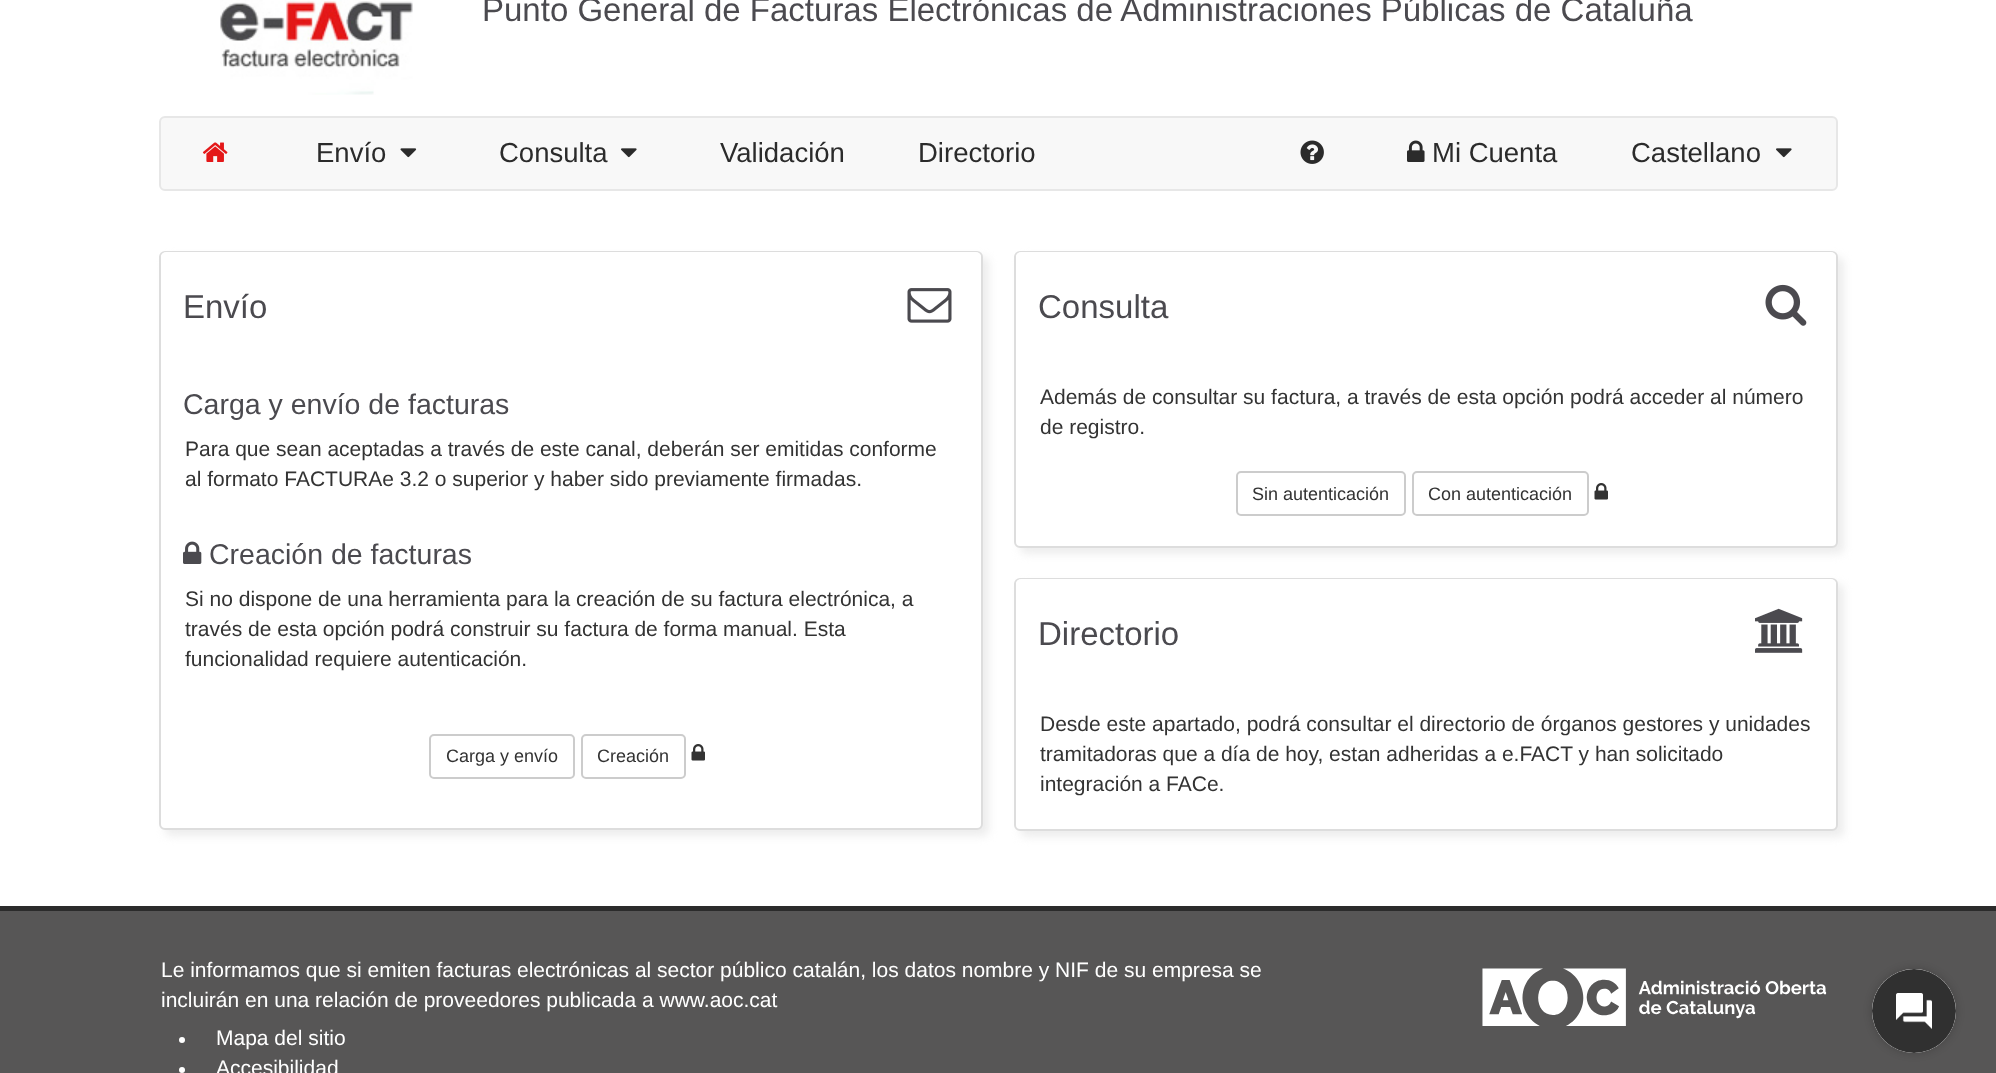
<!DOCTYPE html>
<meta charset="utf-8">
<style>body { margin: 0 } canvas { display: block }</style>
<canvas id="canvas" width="1996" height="1073"></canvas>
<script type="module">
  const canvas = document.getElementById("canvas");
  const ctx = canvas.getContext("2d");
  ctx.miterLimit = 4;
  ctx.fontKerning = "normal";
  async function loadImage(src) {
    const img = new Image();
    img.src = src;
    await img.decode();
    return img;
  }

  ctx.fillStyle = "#575656";
  ctx.fillRect(0, 0, 1996, 1073);
  ctx.fillStyle = "#ffffff";
  ctx.fillRect(0, 0, 1996, 906);
  ctx.drawImage(await loadImage("img1.png"), 220, 0, 193, 95);
  ctx.font = "33px Liberation Sans";
  ctx.fillStyle = "#4b4a4f";
  ctx.fillText("Punto General de Facturas Electrónicas de Administraciones Públicas de Cataluña", 482, 21);
  ctx.fillStyle = "#f8f8f8";
  ctx.beginPath();
  ctx.roundRect(160, 117, 1677, 73, 5);
  ctx.fill();
  ctx.strokeStyle = "#e7e7e7";
  ctx.lineWidth = 2;
  ctx.stroke();
  ctx.drawImage(await loadImage("img2.png"), 202, 142, 26, 20);
  ctx.font = "27.5px Liberation Sans";
  ctx.fillStyle = "#2b2b2b";
  ctx.fillText("Envío", 316, 162);
  ctx.drawImage(await loadImage("img3.png"), 400, 148, 17, 10);
  ctx.fillText("Consulta", 499, 162);
  ctx.drawImage(await loadImage("img4.png"), 621, 148, 16, 10);
  ctx.fillText("Validación", 720, 162);
  ctx.fillText("Directorio", 918, 162);
  ctx.drawImage(await loadImage("img5.png"), 1300, 140, 24, 24);
  ctx.drawImage(await loadImage("img6.png"), 1407, 140, 18, 22);
  ctx.fillText("Mi Cuenta", 1432, 162);
  ctx.fillText("Castellano", 1631, 162);
  ctx.drawImage(await loadImage("img4.png"), 1776, 148, 16, 10);
  ctx.fillStyle = "#ededed";
  ctx.filter = "blur(4.5px)";
  ctx.beginPath();
  ctx.roundRect(165, 257, 824, 579, 6);
  ctx.fill();
  ctx.filter = "none";
  ctx.fillStyle = "#ffffff";
  ctx.beginPath();
  ctx.roundRect(160, 252, 822, 577, 5);
  ctx.fill();
  ctx.strokeStyle = "#dddddd";
  ctx.stroke();
  ctx.beginPath();
  ctx.roundRect(161, 252, 820, 107, [5, 5, 0, 0]);
  ctx.fill();
  ctx.font = "33px Liberation Sans";
  ctx.fillStyle = "#4b4a4f";
  ctx.fillText("Envío", 183, 318);
  ctx.drawImage(await loadImage("img7.png"), 907, 288, 45, 35);
  ctx.font = "28.5px Liberation Sans";
  ctx.fillText("Carga y envío de facturas", 183, 414);
  ctx.font = "21px Liberation Sans";
  ctx.fillStyle = "#333333";
  ctx.fillText("Para que sean aceptadas a través de este canal, deberán ser emitidas conforme", 185, 456);
  ctx.fillText("al formato FACTURAe 3.2 o superior y haber sido previamente firmadas.", 185, 486);
  ctx.drawImage(await loadImage("img8.png"), 183, 541, 19, 23);
  ctx.font = "28.5px Liberation Sans";
  ctx.fillStyle = "#4b4a4f";
  ctx.fillText("Creación de facturas", 209, 564);
  ctx.font = "21px Liberation Sans";
  ctx.fillStyle = "#333333";
  ctx.fillText("Si no dispone de una herramienta para la creación de su factura electrónica, a", 185, 606);
  ctx.fillText("través de esta opción podrá construir su factura de forma manual. Esta", 185, 636);
  ctx.fillText("funcionalidad requiere autenticación.", 185, 666);
  ctx.beginPath();
  ctx.roundRect(430, 735, 144, 43, 4);
  ctx.strokeStyle = "#cccccc";
  ctx.stroke();
  ctx.font = "18px Liberation Sans";
  ctx.fillText("Carga y envío", 446, 762);
  ctx.beginPath();
  ctx.roundRect(582, 735, 103, 43, 4);
  ctx.stroke();
  ctx.fillText("Creación", 597, 762);
  ctx.drawImage(await loadImage("img9.png"), 691, 744, 14, 17);
  ctx.fillStyle = "#ededed";
  ctx.filter = "blur(4.5px)";
  ctx.beginPath();
  ctx.roundRect(1020, 257, 824, 297, 6);
  ctx.fill();
  ctx.filter = "none";
  ctx.fillStyle = "#ffffff";
  ctx.beginPath();
  ctx.roundRect(1015, 252, 822, 295, 5);
  ctx.fill();
  ctx.strokeStyle = "#dddddd";
  ctx.stroke();
  ctx.beginPath();
  ctx.roundRect(1016, 252, 820, 107, [5, 5, 0, 0]);
  ctx.fill();
  ctx.font = "33px Liberation Sans";
  ctx.fillStyle = "#4b4a4f";
  ctx.fillText("Consulta", 1038, 318);
  ctx.drawImage(await loadImage("img10.png"), 1765, 284, 42, 42);
  ctx.font = "21px Liberation Sans";
  ctx.fillStyle = "#333333";
  ctx.fillText("Además de consultar su factura, a través de esta opción podrá acceder al número", 1040, 404);
  ctx.fillText("de registro.", 1040, 434);
  ctx.beginPath();
  ctx.roundRect(1237, 472, 168, 43, 4);
  ctx.strokeStyle = "#cccccc";
  ctx.stroke();
  ctx.font = "18px Liberation Sans";
  ctx.fillText("Sin autenticación", 1252, 500);
  ctx.beginPath();
  ctx.roundRect(1413, 472, 175, 43, 4);
  ctx.stroke();
  ctx.fillText("Con autenticación", 1428, 500);
  ctx.drawImage(await loadImage("img9.png"), 1594, 483, 14, 17);
  ctx.fillStyle = "#ededed";
  ctx.filter = "blur(4.5px)";
  ctx.beginPath();
  ctx.roundRect(1020, 584, 824, 253, 6);
  ctx.fill();
  ctx.filter = "none";
  ctx.fillStyle = "#ffffff";
  ctx.beginPath();
  ctx.roundRect(1015, 579, 822, 251, 5);
  ctx.fill();
  ctx.strokeStyle = "#dddddd";
  ctx.stroke();
  ctx.beginPath();
  ctx.roundRect(1016, 579, 820, 108, [5, 5, 0, 0]);
  ctx.fill();
  ctx.font = "33px Liberation Sans";
  ctx.fillStyle = "#4b4a4f";
  ctx.fillText("Directorio", 1038, 645);
  ctx.drawImage(await loadImage("img11.png"), 1755, 608, 48, 45);
  ctx.font = "21px Liberation Sans";
  ctx.fillStyle = "#333333";
  ctx.fillText("Desde este apartado, podrá consultar el directorio de órganos gestores y unidades", 1040, 731);
  ctx.fillText("tramitadoras que a día de hoy, estan adheridas a e.FACT y han solicitado", 1040, 761);
  ctx.fillText("integración a FACe.", 1040, 791);
  ctx.fillStyle = "#2b2b2b";
  ctx.fillRect(0, 906, 1996, 5);
  ctx.fillStyle = "#ffffff";
  ctx.fillText("Le informamos que si emiten facturas electrónicas al sector público catalán, los datos nombre y NIF de su empresa se", 161, 977);
  ctx.fillText("incluirán en una relación de proveedores publicada a www.aoc.cat", 161, 1007);
  ctx.beginPath();
  ctx.arc(182, 1040, 3, 0, Math.PI * 2);
  ctx.fill();
  ctx.fillText("Mapa del sitio", 216, 1045);
  ctx.beginPath();
  ctx.arc(182, 1070, 3, 0, Math.PI * 2);
  ctx.fill();
  ctx.fillText("Accesibilidad", 216, 1075);
  ctx.drawImage(await loadImage("img12.png"), 1482, 968, 345, 58);
  ctx.fillStyle = "rgba(0, 0, 0, 0.2)";
  ctx.filter = "blur(4px)";
  ctx.beginPath();
  ctx.roundRect(1872, 969, 84, 84, 42);
  ctx.fill();
  ctx.filter = "none";
  ctx.fillStyle = "#ffffff";
  ctx.beginPath();
  ctx.arc(1914, 1011, 42, 0, Math.PI * 2);
  ctx.fill();
  ctx.drawImage(await loadImage("img13.png"), 1872, 969, 84, 84);
</script>
